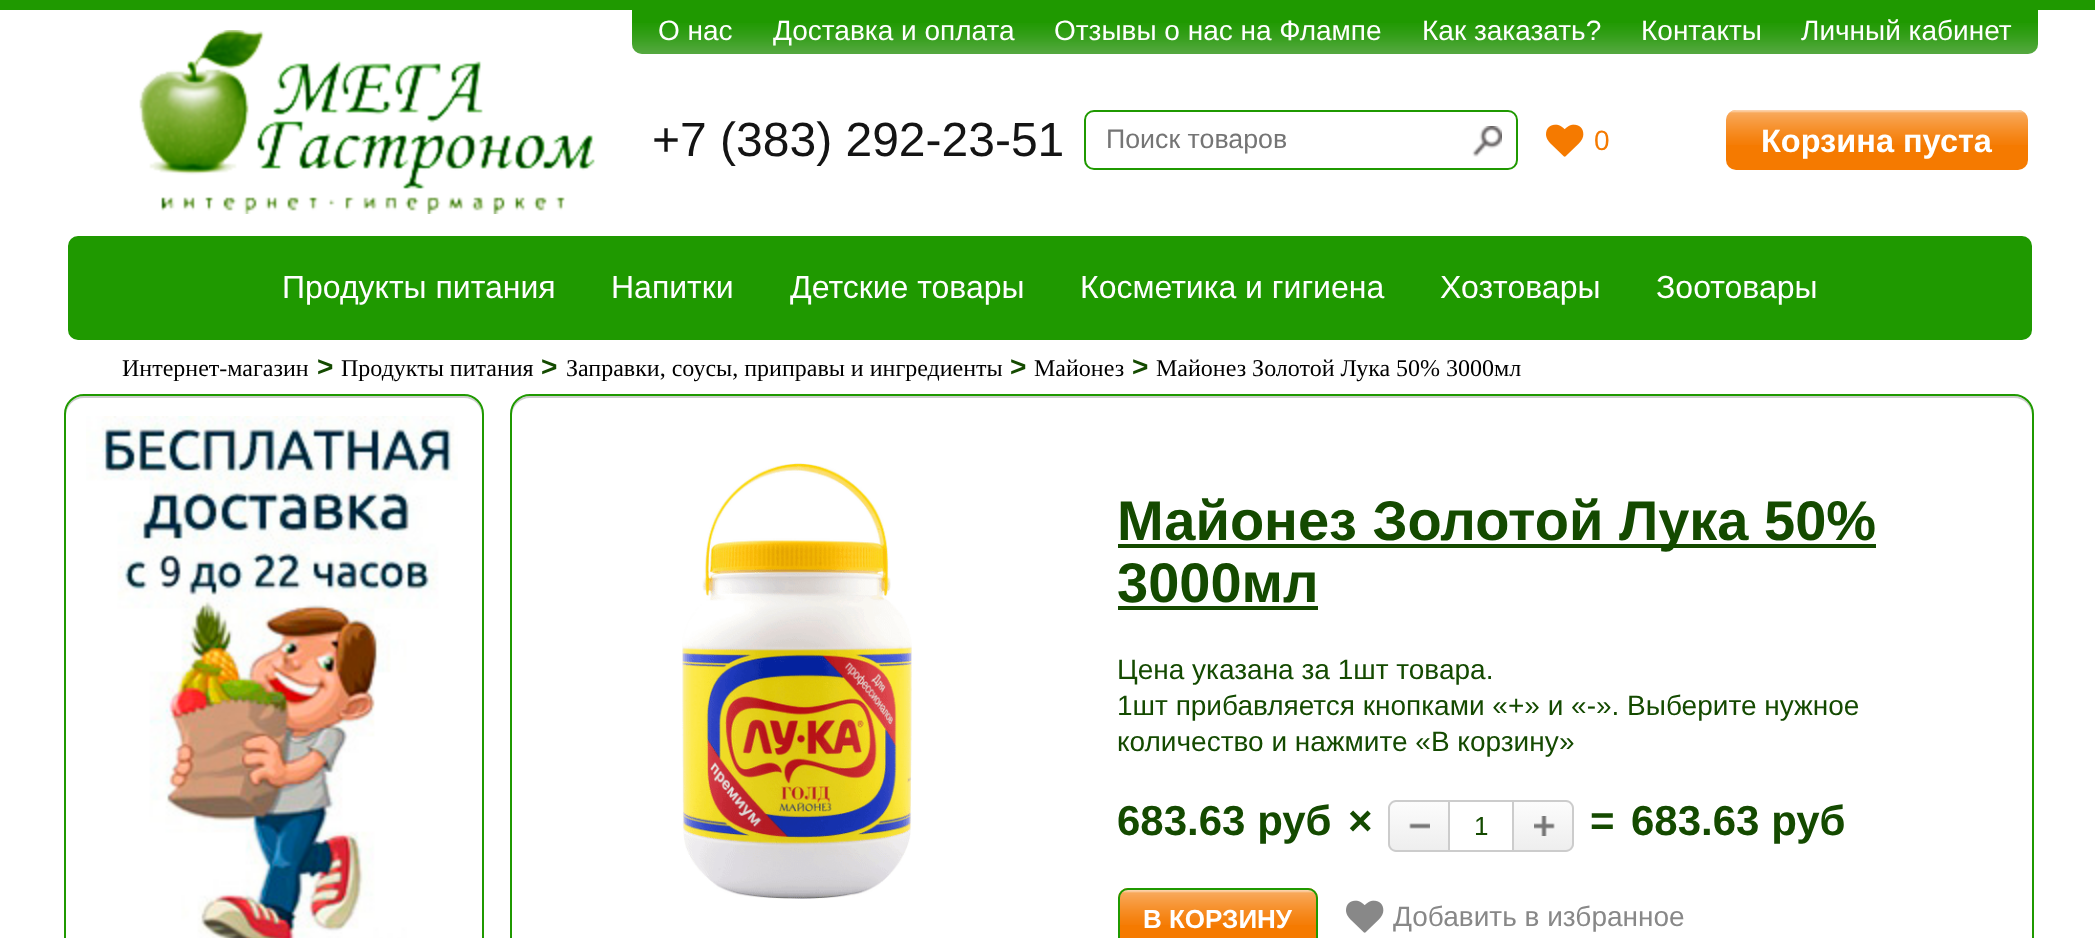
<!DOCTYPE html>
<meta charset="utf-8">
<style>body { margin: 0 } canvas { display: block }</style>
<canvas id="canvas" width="2095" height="938"></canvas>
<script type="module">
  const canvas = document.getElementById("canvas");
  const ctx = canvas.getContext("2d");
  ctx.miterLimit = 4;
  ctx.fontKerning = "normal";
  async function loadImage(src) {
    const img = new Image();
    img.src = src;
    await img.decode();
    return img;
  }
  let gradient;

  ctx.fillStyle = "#ffffff";
  ctx.fillRect(0, 0, 2095, 938);
  ctx.fillStyle = "#1f9900";
  ctx.fillRect(0, 0, 2095, 10);
  ctx.drawImage(await loadImage("img1.png"), 139, 30, 456, 184);
  ctx.beginPath();
  ctx.roundRect(632, 10, 1406, 44, [0, 0, 10, 10]);
  ctx.fill();
  ctx.drawImage(await loadImage("img2.png"), 632, 23, 1406, 31);
  ctx.font = "28px Liberation Sans";
  ctx.fillStyle = "#ffffff";
  ctx.fillText("О нас", 658, 40);
  ctx.fillText("Доставка и оплата", 773, 40);
  ctx.fillText("Отзывы о нас на Флампе", 1054, 40);
  ctx.fillText("Как заказать?", 1422, 40);
  ctx.fillText("Контакты", 1641, 40);
  ctx.fillText("Личный кабинет", 1801, 40);
  ctx.font = "48px Liberation Sans";
  ctx.fillStyle = "#141414";
  ctx.fillText("+7 (383) 292-23-51", 652, 156);
  ctx.beginPath();
  ctx.roundRect(1085, 111, 432, 58, 9);
  ctx.strokeStyle = "#1f9900";
  ctx.lineWidth = 2;
  ctx.stroke();
  ctx.font = "26.75px Liberation Sans";
  ctx.fillStyle = "#757575";
  ctx.fillText("Поиск товаров", 1106, 148);
  ctx.drawImage(await loadImage("img3.png"), 1472, 126, 30, 31);
  ctx.drawImage(await loadImage("img4.png"), 1546, 124, 38, 33);
  ctx.font = "28px Liberation Sans";
  ctx.fillStyle = "#f57a00";
  ctx.fillText("0", 1594, 150);
  ctx.beginPath();
  ctx.roundRect(1726, 110, 302, 60, 10);
  ctx.fill();
  ctx.drawImage(await loadImage("img5.png"), 1726, 110, 302, 35);
  ctx.font = "bold 32.5px Liberation Sans";
  ctx.fillStyle = "#ffffff";
  ctx.fillText("Корзина пуста", 1761, 152);
  ctx.fillStyle = "#1f9900";
  ctx.beginPath();
  ctx.roundRect(69, 237, 1962, 102, 9);
  ctx.fill();
  ctx.stroke();
  ctx.font = "32px Liberation Sans";
  ctx.fillStyle = "#ffffff";
  ctx.fillText("Продукты питания", 282, 298);
  ctx.fillText("Напитки", 611, 298);
  ctx.fillText("Детские товары", 790, 298);
  ctx.fillText("Косметика и гигиена", 1080, 298);
  ctx.fillText("Хозтовары", 1440, 298);
  ctx.fillText("Зоотовары", 1656, 298);
  ctx.font = "24px Liberation Serif";
  ctx.fillStyle = "#000000";
  ctx.fillText("Интернет-магазин", 122, 376);
  ctx.font = "bold 28px Liberation Sans";
  ctx.fillStyle = "#144a00";
  ctx.fillText(">", 317, 376);
  ctx.font = "24px Liberation Serif";
  ctx.fillStyle = "#000000";
  ctx.fillText("Продукты питания", 341, 376);
  ctx.font = "bold 28px Liberation Sans";
  ctx.fillStyle = "#144a00";
  ctx.fillText(">", 541, 376);
  ctx.font = "24px Liberation Serif";
  ctx.fillStyle = "#000000";
  ctx.fillText("Заправки, соусы, приправы и ингредиенты", 566, 376);
  ctx.font = "bold 28px Liberation Sans";
  ctx.fillStyle = "#144a00";
  ctx.fillText(">", 1010, 376);
  ctx.font = "24px Liberation Serif";
  ctx.fillStyle = "#000000";
  ctx.fillText("Майонез", 1034, 376);
  ctx.font = "bold 28px Liberation Sans";
  ctx.fillStyle = "#144a00";
  ctx.fillText(">", 1132, 376);
  ctx.font = "24px Liberation Serif";
  ctx.fillStyle = "#000000";
  ctx.fillText("Майонез Золотой Лука 50% 3000мл", 1156, 376);
  ctx.fillStyle = "#cccccc";
  ctx.beginPath();
  ctx.moveTo(84, 398);
  ctx.lineTo(464, 398);
  ctx.bezierCurveTo(474, 398, 482, 406, 482, 416);
  ctx.lineTo(482, 414);
  ctx.bezierCurveTo(482, 404, 474, 396, 464, 396);
  ctx.lineTo(84, 396);
  ctx.bezierCurveTo(74, 396, 66, 404, 66, 414);
  ctx.lineTo(66, 416);
  ctx.bezierCurveTo(66, 406, 74, 398, 84, 398);
  ctx.closePath();
  ctx.fill();
  ctx.beginPath();
  ctx.roundRect(65, 395, 418, 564, 19);
  ctx.stroke();
  ctx.drawImage(await loadImage("img6.png"), 86, 416, 372, 522);
  ctx.beginPath();
  ctx.moveTo(530, 398);
  ctx.lineTo(2014, 398);
  ctx.bezierCurveTo(2024, 398, 2032, 406, 2032, 416);
  ctx.lineTo(2032, 414);
  ctx.bezierCurveTo(2032, 404, 2024, 396, 2014, 396);
  ctx.lineTo(530, 396);
  ctx.bezierCurveTo(520, 396, 512, 404, 512, 414);
  ctx.lineTo(512, 416);
  ctx.bezierCurveTo(512, 406, 520, 398, 530, 398);
  ctx.closePath();
  ctx.fill();
  ctx.beginPath();
  ctx.roundRect(511, 395, 1522, 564, 19);
  ctx.stroke();
  ctx.drawImage(await loadImage("img7.png"), 682, 463, 230, 436);
  ctx.fillStyle = "#144a00";
  ctx.fillRect(1118, 544, 758, 4);
  ctx.font = "bold 56px Liberation Sans";
  ctx.fillText("Майонез Золотой Лука 50%", 1117, 540);
  ctx.fillText("3000мл", 1117, 602);
  ctx.fillRect(1118, 606, 200, 4);
  ctx.font = "28px Liberation Sans";
  ctx.fillText("Цена указана за 1шт товара.", 1117, 679);
  ctx.fillText("1шт прибавляется кнопками «+» и «-». Выберите нужное", 1117, 715);
  ctx.fillText("количество и нажмите «В корзину»", 1117, 751);
  ctx.font = "bold 42px Liberation Sans";
  ctx.fillText("683.63 руб", 1117, 835);
  ctx.fillText("×", 1348, 835);
  ctx.save();
  ctx.beginPath();
  ctx.roundRect(1388, 800, 60, 52, [8, 0, 0, 8]);
  ctx.clip();
  gradient = ctx.createLinearGradient(1419, 754, 1419, 802);
  gradient.addColorStop(0, "#fcfcfc");
  gradient.addColorStop(1, "#eeeeee");
  ctx.fillStyle = gradient;
  ctx.fillRect(1388, 800, 8, 2);
  gradient = ctx.createLinearGradient(1419, 802, 1419, 850);
  gradient.addColorStop(0, "#fcfcfc");
  gradient.addColorStop(1, "#eeeeee");
  ctx.fillStyle = gradient;
  ctx.fillRect(1388, 802, 60, 48);
  gradient = ctx.createLinearGradient(1419, 850, 1419, 898);
  gradient.addColorStop(0, "#fcfcfc");
  gradient.addColorStop(1, "#eeeeee");
  ctx.fillStyle = gradient;
  ctx.fillRect(1388, 850, 8, 2);
  ctx.restore();
  ctx.fillStyle = "#cccccc";
  ctx.beginPath();
  ctx.moveTo(1396, 800);
  ctx.lineTo(1448, 800);
  ctx.lineTo(1448, 852);
  ctx.lineTo(1396, 852);
  ctx.bezierCurveTo(1392, 852, 1388, 848, 1388, 844);
  ctx.lineTo(1388, 808);
  ctx.bezierCurveTo(1388, 804, 1392, 800, 1396, 800);
  ctx.closePath();
  ctx.moveTo(1396, 802);
  ctx.lineTo(1448, 802);
  ctx.lineTo(1448, 850);
  ctx.lineTo(1396, 850);
  ctx.bezierCurveTo(1393, 850, 1390, 847, 1390, 844);
  ctx.lineTo(1390, 808);
  ctx.bezierCurveTo(1390, 805, 1393, 802, 1396, 802);
  ctx.closePath();
  ctx.fill("evenodd");
  ctx.drawImage(await loadImage("img8.png"), 1409, 823, 21, 6);
  ctx.strokeStyle = "#cccccc";
  ctx.strokeRect(1449, 801, 64, 50);
  ctx.font = "26px Liberation Sans";
  ctx.fillStyle = "#144a00";
  ctx.fillText("1", 1474, 835);
  ctx.save();
  ctx.beginPath();
  ctx.roundRect(1514, 800, 60, 52, [0, 8, 8, 0]);
  ctx.clip();
  gradient = ctx.createLinearGradient(1543, 754, 1543, 802);
  gradient.addColorStop(0, "#fcfcfc");
  gradient.addColorStop(1, "#eeeeee");
  ctx.fillStyle = gradient;
  ctx.fillRect(1566, 800, 8, 2);
  gradient = ctx.createLinearGradient(1543, 802, 1543, 850);
  gradient.addColorStop(0, "#fcfcfc");
  gradient.addColorStop(1, "#eeeeee");
  ctx.fillStyle = gradient;
  ctx.fillRect(1514, 802, 60, 48);
  gradient = ctx.createLinearGradient(1543, 850, 1543, 898);
  gradient.addColorStop(0, "#fcfcfc");
  gradient.addColorStop(1, "#eeeeee");
  ctx.fillStyle = gradient;
  ctx.fillRect(1566, 850, 8, 2);
  ctx.restore();
  ctx.fillStyle = "#cccccc";
  ctx.beginPath();
  ctx.moveTo(1514, 800);
  ctx.lineTo(1566, 800);
  ctx.bezierCurveTo(1570, 800, 1574, 804, 1574, 808);
  ctx.lineTo(1574, 844);
  ctx.bezierCurveTo(1574, 848, 1570, 852, 1566, 852);
  ctx.lineTo(1514, 852);
  ctx.closePath();
  ctx.moveTo(1514, 802);
  ctx.lineTo(1566, 802);
  ctx.bezierCurveTo(1569, 802, 1572, 805, 1572, 808);
  ctx.lineTo(1572, 844);
  ctx.bezierCurveTo(1572, 847, 1569, 850, 1566, 850);
  ctx.lineTo(1514, 850);
  ctx.closePath();
  ctx.fill("evenodd");
  ctx.drawImage(await loadImage("img9.png"), 1534, 816, 21, 20);
  ctx.font = "bold 42px Liberation Sans";
  ctx.fillStyle = "#144a00";
  ctx.fillText("=", 1590, 835);
  ctx.fillText("683.63 руб", 1631, 835);
  ctx.fillStyle = "#f57a00";
  ctx.beginPath();
  ctx.roundRect(1118, 888, 200, 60, 10);
  ctx.fill();
  ctx.drawImage(await loadImage("img10.png"), 1118, 890, 200, 35);
  ctx.beginPath();
  ctx.roundRect(1119, 889, 198, 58, 9);
  ctx.strokeStyle = "#1f9900";
  ctx.stroke();
  ctx.font = "bold 26px Liberation Sans";
  ctx.fillStyle = "#ffffff";
  ctx.fillText("В КОРЗИНУ", 1143, 928);
  ctx.drawImage(await loadImage("img11.png"), 1346, 900, 38, 33);
  ctx.font = "28px Liberation Sans";
  ctx.fillStyle = "#888888";
  ctx.fillText("Добавить в избранное", 1393, 926);
</script>
